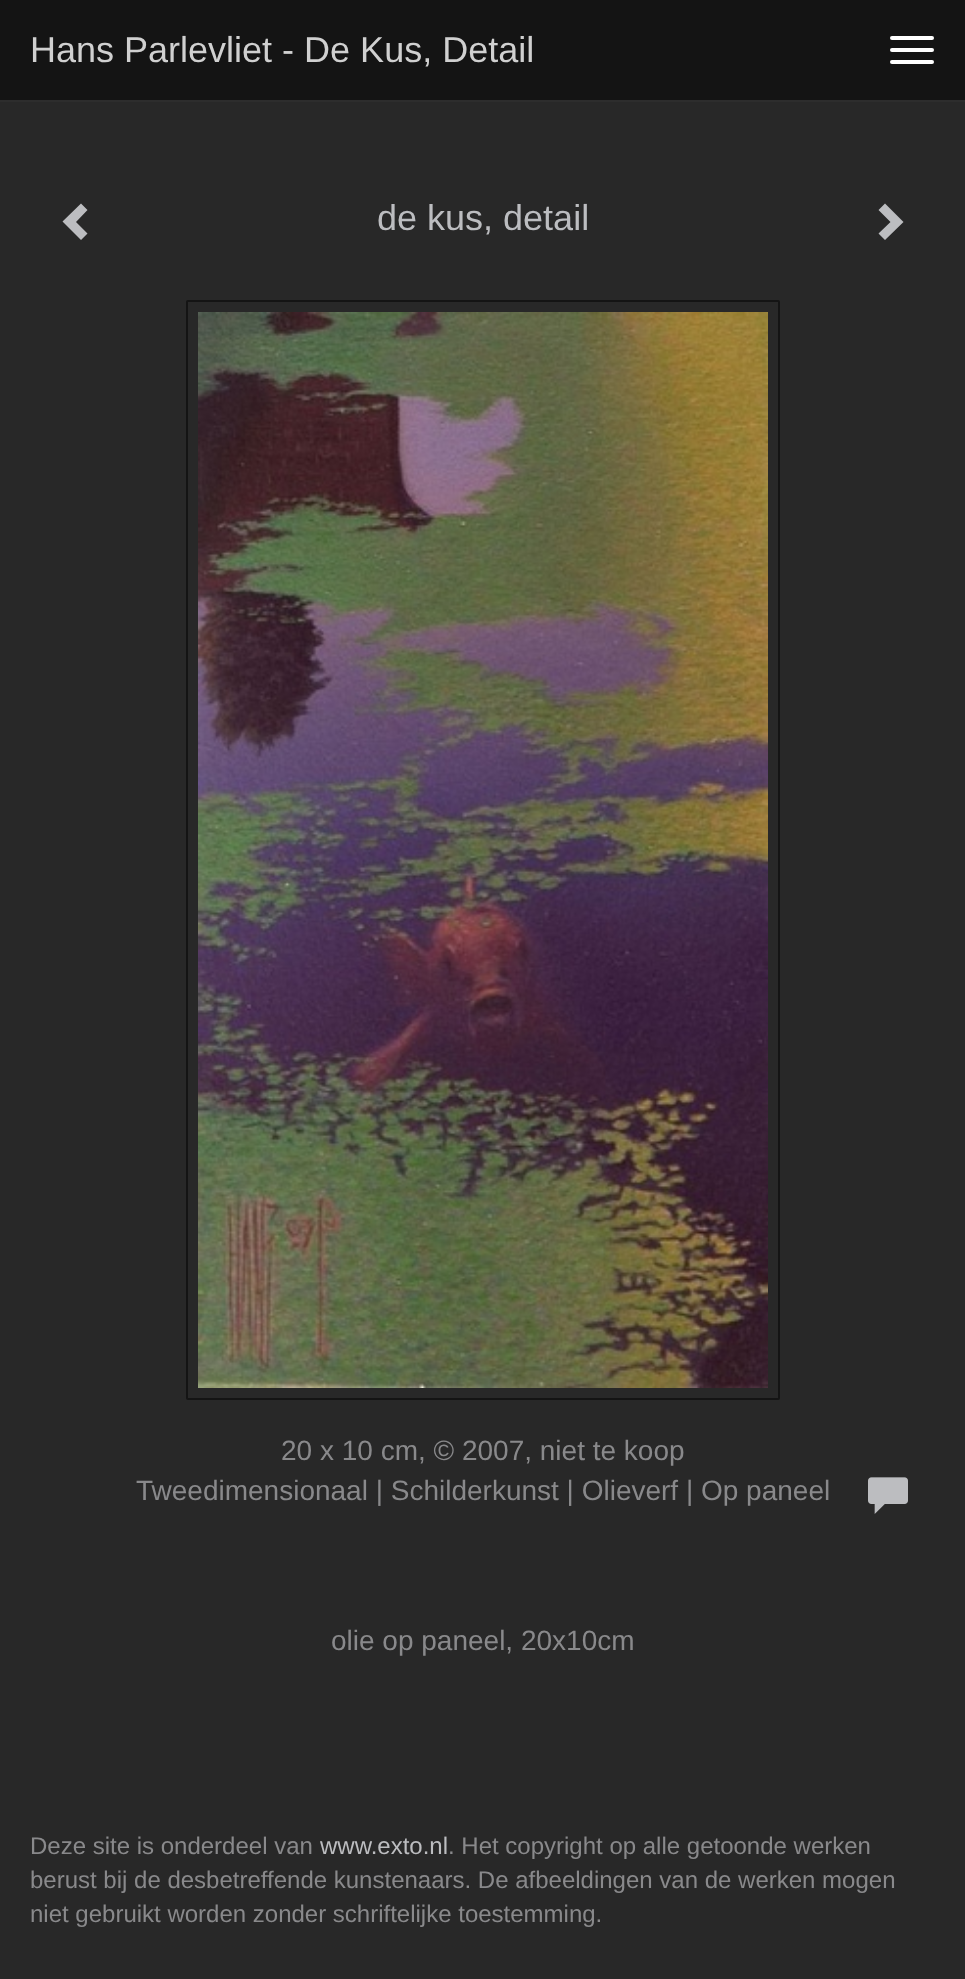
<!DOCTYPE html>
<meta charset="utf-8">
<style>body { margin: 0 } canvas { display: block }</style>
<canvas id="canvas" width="965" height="1979"></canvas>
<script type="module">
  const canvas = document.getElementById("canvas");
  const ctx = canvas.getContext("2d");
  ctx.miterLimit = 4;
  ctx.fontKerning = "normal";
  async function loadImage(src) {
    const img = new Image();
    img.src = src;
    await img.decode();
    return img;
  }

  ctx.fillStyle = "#282828";
  ctx.fillRect(0, 0, 965, 1979);
  ctx.fillStyle = "#141414";
  ctx.fillRect(0, 0, 965, 100);
  ctx.fillStyle = "#2d2d2d";
  ctx.fillRect(0, 100, 965, 2);
  ctx.font = "36px Liberation Sans";
  ctx.fillStyle = "#d0d0d0";
  ctx.fillText("Hans Parlevliet - De Kus, Detail", 30, 62);
  ctx.fillStyle = "#ffffff";
  ctx.beginPath();
  ctx.roundRect(890, 36, 44, 4, 2);
  ctx.fill();
  ctx.beginPath();
  ctx.roundRect(890, 48, 44, 4, 2);
  ctx.fill();
  ctx.beginPath();
  ctx.roundRect(890, 60, 44, 4, 2);
  ctx.fill();
  ctx.fillStyle = "#bcbdc0";
  ctx.beginPath();
  ctx.moveTo(87.5, 210);
  ctx.lineTo(76, 222);
  ctx.lineTo(87.5, 233.5);
  ctx.lineTo(81, 240);
  ctx.lineTo(62.5, 221.5);
  ctx.lineTo(81, 203.5);
  ctx.closePath();
  ctx.fill();
  ctx.fillText("de kus, detail", 377, 230);
  ctx.beginPath();
  ctx.moveTo(903.5, 222);
  ctx.lineTo(885, 240);
  ctx.lineTo(878.5, 233.5);
  ctx.lineTo(890.5, 222);
  ctx.lineTo(878.5, 210);
  ctx.lineTo(885, 203.5);
  ctx.closePath();
  ctx.fill();
  ctx.beginPath();
  ctx.roundRect(187, 301, 592, 1098, 1);
  ctx.strokeStyle = "#141414";
  ctx.lineWidth = 2;
  ctx.stroke();
  ctx.drawImage(await loadImage("img1.png"), 198, 312, 570, 1076);
  ctx.font = "28px Liberation Sans";
  ctx.fillStyle = "#89898b";
  ctx.fillText("20 x 10 cm, © 2007, niet te koop", 281, 1460);
  ctx.fillText("Tweedimensionaal | Schilderkunst | Olieverf | Op paneel", 136, 1500);
  ctx.drawImage(await loadImage("img2.png"), 868, 1477, 40, 37);
  ctx.fillText("olie op paneel, 20x10cm", 331, 1650);
  ctx.font = "24px Liberation Sans";
  ctx.fillText("Deze site is onderdeel van", 30, 1854);
  ctx.fillStyle = "#bcbdc0";
  ctx.fillText("www.exto.nl", 320, 1854);
  ctx.fillStyle = "#89898b";
  ctx.fillText(". Het copyright op alle getoonde werken", 448, 1854);
  ctx.fillText("berust bij de desbetreffende kunstenaars. De afbeeldingen van de werken mogen", 30, 1888);
  ctx.fillText("niet gebruikt worden zonder schriftelijke toestemming.", 30, 1922);
</script>
